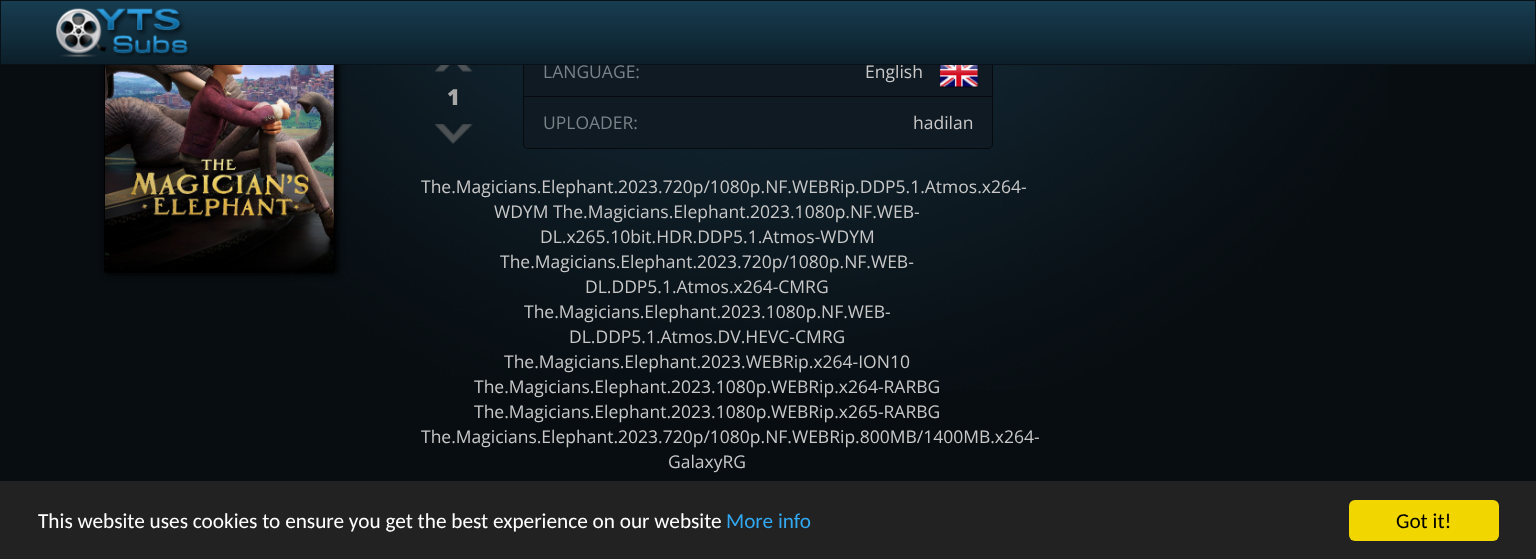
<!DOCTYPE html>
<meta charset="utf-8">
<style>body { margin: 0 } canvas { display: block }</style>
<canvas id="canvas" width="1536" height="559"></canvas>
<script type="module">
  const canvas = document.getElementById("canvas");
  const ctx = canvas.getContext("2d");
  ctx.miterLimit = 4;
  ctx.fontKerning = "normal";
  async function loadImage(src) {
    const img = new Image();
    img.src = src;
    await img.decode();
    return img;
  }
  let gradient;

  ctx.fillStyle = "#080d11";
  ctx.fillRect(0, 0, 1536, 559);
  ctx.drawImage(await loadImage("img1.png"), 142, 65, 1246, 325);
  ctx.fillStyle = "#000000";
  ctx.filter = "blur(3px)";
  ctx.beginPath();
  ctx.rect(106, -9, 232, 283);
  ctx.fill();
  ctx.filter = "none";
  ctx.strokeStyle = "#000000";
  ctx.strokeRect(104.5, -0.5, 230, 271);
  ctx.fillStyle = "#101a22";
  ctx.fillRect(523, 65, 470, 31);
  ctx.strokeStyle = "rgba(0, 0, 0, 0.6)";
  ctx.strokeRect(523.5, 45.5, 469, 52);
  gradient = ctx.createLinearGradient(768, 1.2, 768, 64);
  gradient.addColorStop(0, "#183d51");
  gradient.addColorStop(0.6, "#112b39");
  gradient.addColorStop(1, "#0c1f29");
  ctx.fillStyle = gradient;
  ctx.fillRect(1, 1, 1534, 63);
  ctx.font = "17.5px Open Sans";
  ctx.fillStyle = "#c8c8c8";
  ctx.fillText("English", 865, 78);
  ctx.strokeStyle = "#071117";
  ctx.strokeRect(0.5, 0.5, 1535, 64);
  ctx.drawImage(await loadImage("img2.png"), 56, 8, 133, 49);
  ctx.drawImage(await loadImage("img3.png"), 105, 65, 229, 208);
  ctx.drawImage(await loadImage("img4.png"), 435, 65, 38, 7);
  ctx.font = "800 22px Open Sans";
  ctx.fillStyle = "#a8a8a8";
  ctx.fillText("1", 447, 105);
  ctx.drawImage(await loadImage("img5.png"), 435, 124, 38, 20);
  ctx.font = "17.5px Open Sans";
  ctx.fillStyle = "#7a8288";
  ctx.fillText("LANGUAGE:", 543, 78);
  ctx.drawImage(await loadImage("img6.png"), 939, 65, 39, 23);
  ctx.fillStyle = "#101a22";
  ctx.beginPath();
  ctx.roundRect(523.5, 96.5, 469, 52, [0, 0, 4.5, 4.5]);
  ctx.fill();
  ctx.strokeStyle = "#060a0e";
  ctx.stroke();
  ctx.fillStyle = "#7a8288";
  ctx.fillText("UPLOADER:", 543, 129);
  ctx.fillStyle = "#c8c8c8";
  ctx.fillText("hadilan", 913, 129);
  ctx.fillText("The.Magicians.Elephant.2023.720p/1080p.NF.WEBRip.DDP5.1.Atmos.x264-", 421, 193);
  ctx.fillText("WDYM The.Magicians.Elephant.2023.1080p.NF.WEB-", 494, 218);
  ctx.fillText("DL.x265.10bit.HDR.DDP5.1.Atmos-WDYM", 540, 243);
  ctx.fillText("The.Magicians.Elephant.2023.720p/1080p.NF.WEB-", 500, 268);
  ctx.fillText("DL.DDP5.1.Atmos.x264-CMRG", 585, 293);
  ctx.fillText("The.Magicians.Elephant.2023.1080p.NF.WEB-", 524, 318);
  ctx.fillText("DL.DDP5.1.Atmos.DV.HEVC-CMRG", 569, 343);
  ctx.fillText("The.Magicians.Elephant.2023.WEBRip.x264-ION10", 504, 368);
  ctx.fillText("The.Magicians.Elephant.2023.1080p.WEBRip.x264-RARBG", 474, 393);
  ctx.fillText("The.Magicians.Elephant.2023.1080p.WEBRip.x265-RARBG", 474, 418);
  ctx.fillText("The.Magicians.Elephant.2023.720p/1080p.NF.WEBRip.800MB/1400MB.x264-", 421, 443);
  ctx.fillText("GalaxyRG", 668, 468);
  ctx.fillStyle = "#222222";
  ctx.fillRect(0, 481, 1536, 78);
  ctx.font = "21.25px Carlito";
  ctx.fillStyle = "#ffffff";
  ctx.fillText("This website uses cookies to ensure you get the best experience on our website", 38, 528);
  ctx.fillStyle = "#31a8f0";
  ctx.fillText("More info", 726, 528);
  ctx.fillStyle = "#f1d600";
  ctx.beginPath();
  ctx.roundRect(1349, 500, 150, 41, 6);
  ctx.fill();
  ctx.fillStyle = "#000000";
  ctx.fillText("Got it!", 1396, 528);
</script>
